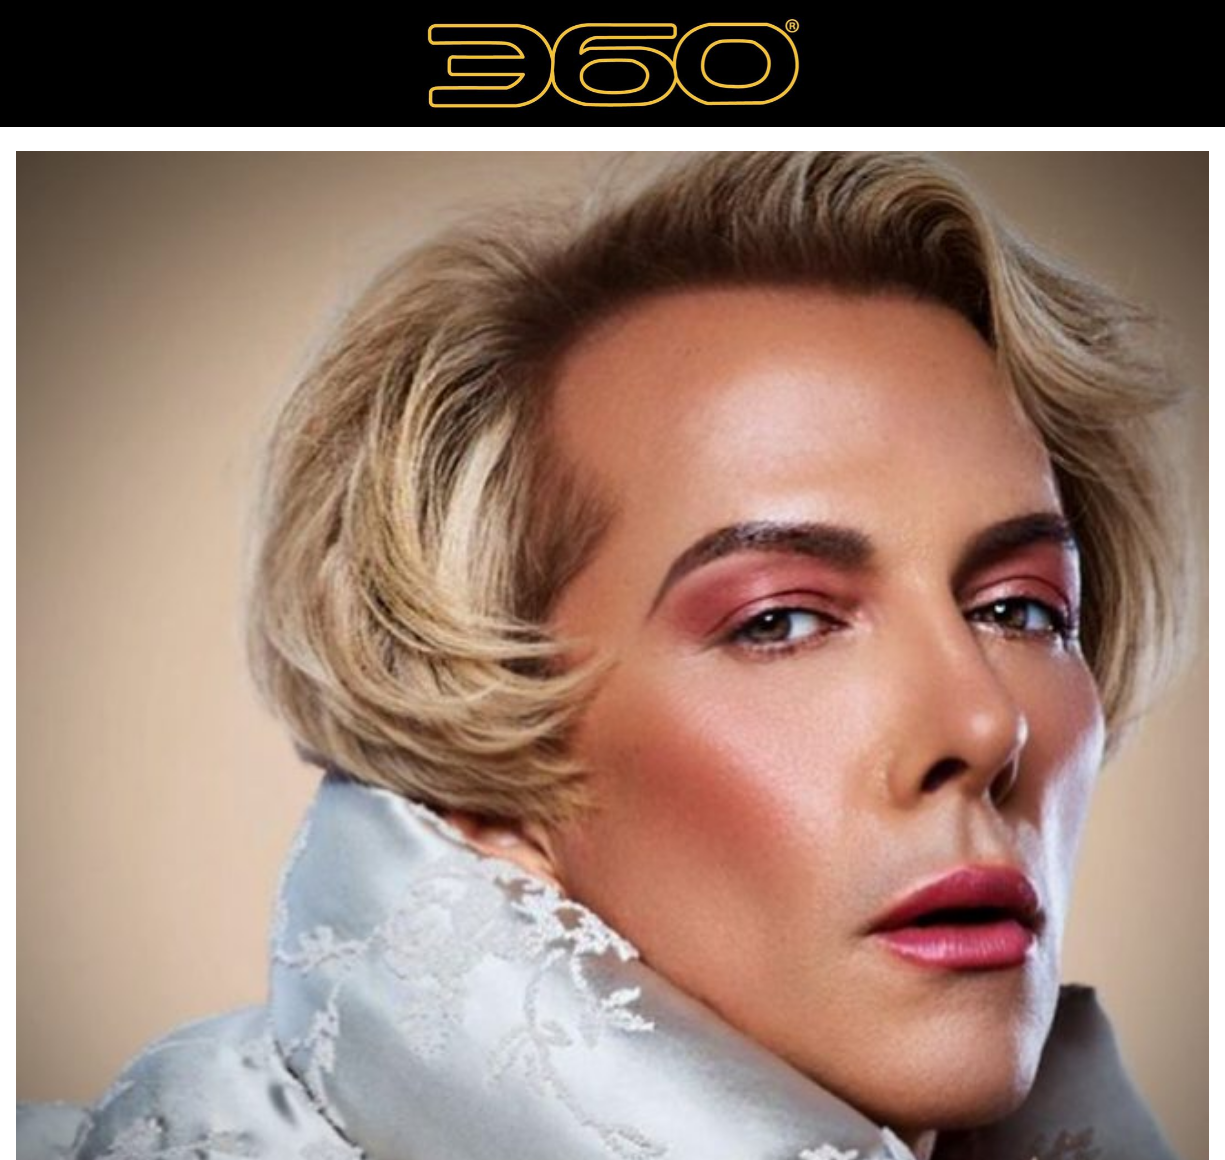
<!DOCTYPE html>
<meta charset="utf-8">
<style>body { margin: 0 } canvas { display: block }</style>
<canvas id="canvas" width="1225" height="1160"></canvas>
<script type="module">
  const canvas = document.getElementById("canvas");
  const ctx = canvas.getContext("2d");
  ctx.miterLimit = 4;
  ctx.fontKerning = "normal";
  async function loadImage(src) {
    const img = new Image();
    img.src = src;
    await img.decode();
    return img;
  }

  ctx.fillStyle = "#ffffff";
  ctx.fillRect(0, 0, 1225, 1160);
  ctx.fillStyle = "#000000";
  ctx.fillRect(0, 0, 1225, 127);
  ctx.drawImage(await loadImage("img1.png"), 422, 17, 383, 98);
  ctx.drawImage(await loadImage("img2.png"), 16, 151, 1193, 1009);
</script>
